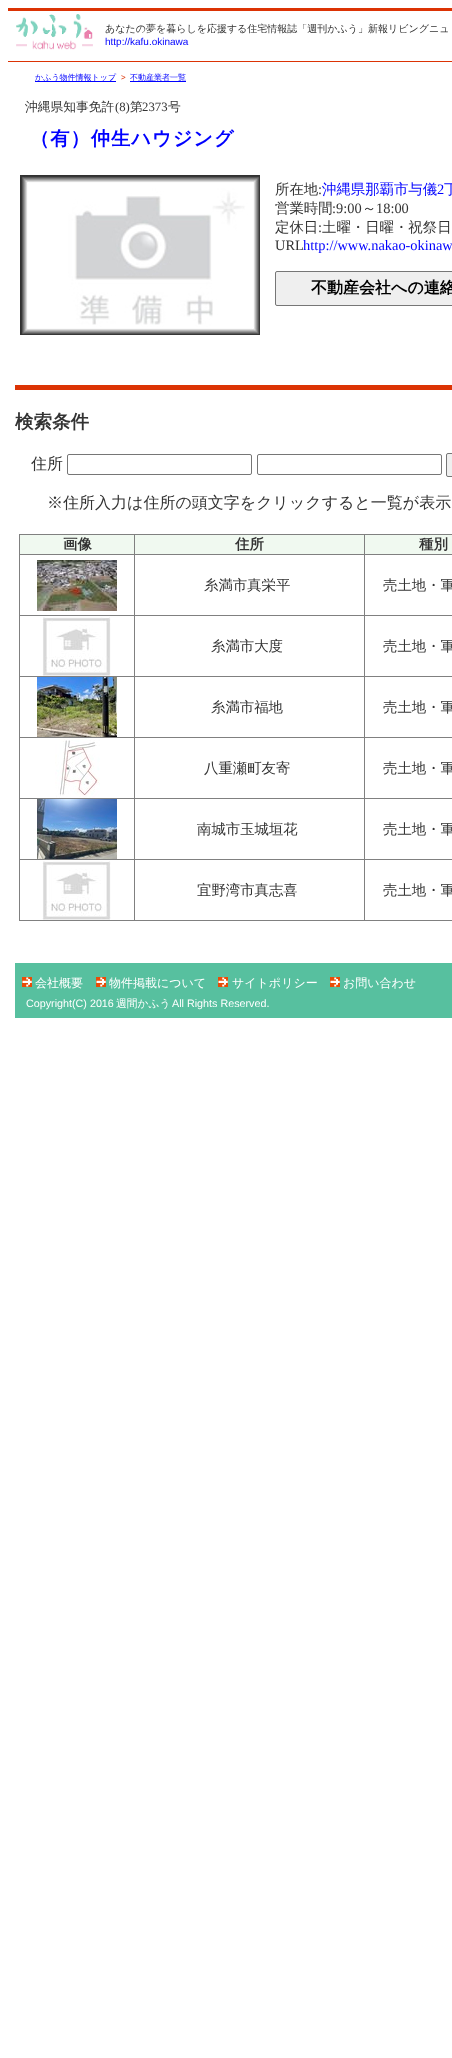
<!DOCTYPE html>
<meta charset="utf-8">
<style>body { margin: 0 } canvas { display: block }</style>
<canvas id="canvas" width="452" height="2058"></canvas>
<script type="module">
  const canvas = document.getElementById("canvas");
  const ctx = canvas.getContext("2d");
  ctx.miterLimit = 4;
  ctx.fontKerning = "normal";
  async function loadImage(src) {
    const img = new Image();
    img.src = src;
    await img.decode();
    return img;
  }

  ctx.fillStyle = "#ffffff";
  ctx.fillRect(0, 0, 452, 2058);
  ctx.fillStyle = "#dc3304";
  ctx.fillRect(8, 8, 444, 3);
  ctx.fillRect(8, 61, 444, 1);
  ctx.drawImage(await loadImage("img1.png"), 16, 14, 77, 36);
  ctx.font = "500 10px WenQuanYi Zen Hei";
  ctx.fillStyle = "#333333";
  ctx.fillText("あなたの夢を暮らしを応援する住宅情報誌「週刊かふう」新報リビングニュ", 105, 32);
  ctx.font = "10px Liberation Sans";
  ctx.fillStyle = "#0000ff";
  ctx.fillText("http://kafu.okinawa", 105, 45);
  ctx.fillStyle = "#dc3304";
  ctx.fillRect(15, 385, 437, 5);
  ctx.fillStyle = "#0000ff";
  ctx.fillRect(35, 81, 81, 1);
  ctx.font = "500 8px WenQuanYi Zen Hei";
  ctx.fillText("かふう物件情報トップ", 35, 80);
  ctx.font = "8px Liberation Sans";
  ctx.fillStyle = "#dc3304";
  ctx.fillText(">", 121, 80);
  ctx.fillStyle = "#0000ff";
  ctx.fillRect(130, 81, 56, 1);
  ctx.font = "500 8px WenQuanYi Zen Hei";
  ctx.fillText("不動産業者一覧", 130, 80);
  ctx.font = "500 12.75px WenQuanYi Zen Hei";
  ctx.fillStyle = "#333333";
  ctx.fillText("沖縄県知事免許", 25, 111);
  ctx.font = "12.75px Liberation Serif";
  ctx.fillText("(8)", 115, 111);
  ctx.font = "500 12.75px WenQuanYi Zen Hei";
  ctx.fillText("第", 130, 111);
  ctx.font = "12.75px Liberation Serif";
  ctx.fillText("2373", 142, 111);
  ctx.font = "500 12.75px WenQuanYi Zen Hei";
  ctx.fillText("号", 168, 111);
  ctx.letterSpacing = "1px";
  ctx.font = "bold 19.25px WenQuanYi Zen Hei";
  ctx.fillStyle = "#0000ff";
  ctx.fillText("（有）仲生ハウジング", 30, 145);
  ctx.drawImage(await loadImage("img2.png"), 20, 175, 240, 160);
  ctx.letterSpacing = "0px";
  ctx.font = "500 14.4px WenQuanYi Zen Hei";
  ctx.fillStyle = "#333333";
  ctx.fillText("所在地", 275, 194);
  ctx.font = "14.4px Liberation Serif";
  ctx.fillText(":", 318, 194);
  ctx.font = "500 14.4px WenQuanYi Zen Hei";
  ctx.fillStyle = "#0000ff";
  ctx.fillText("沖縄県那覇市与儀", 322, 194);
  ctx.font = "14.4px Liberation Serif";
  ctx.fillText("2", 437, 194);
  ctx.font = "500 14.4px WenQuanYi Zen Hei";
  ctx.fillText("丁", 444, 194);
  ctx.fillStyle = "#333333";
  ctx.fillText("営業時間", 275, 213);
  ctx.font = "14.4px Liberation Serif";
  ctx.fillText(":9:00", 332, 213);
  ctx.font = "500 14.4px WenQuanYi Zen Hei";
  ctx.fillText("～", 362, 213);
  ctx.font = "14.4px Liberation Serif";
  ctx.fillText("18:00", 376, 213);
  ctx.font = "500 14.4px WenQuanYi Zen Hei";
  ctx.fillText("定休日", 275, 232);
  ctx.font = "14.4px Liberation Serif";
  ctx.fillText(":", 318, 232);
  ctx.font = "500 14.4px WenQuanYi Zen Hei";
  ctx.fillText("土曜・日曜・祝祭日", 322, 232);
  ctx.font = "14.4px Liberation Serif";
  ctx.fillText("URL", 275, 250);
  ctx.fillStyle = "#0000ff";
  ctx.fillText("http://www.nakao-okinaw", 303, 250);
  ctx.fillStyle = "#efefef";
  ctx.beginPath();
  ctx.roundRect(275.5, 271.5, 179, 34, 1.5);
  ctx.fill();
  ctx.strokeStyle = "#767676";
  ctx.stroke();
  ctx.font = "bold 16px WenQuanYi Zen Hei";
  ctx.fillStyle = "#000000";
  ctx.fillText("不動産会社への連絡", 311, 293);
  ctx.font = "bold 18.5px WenQuanYi Zen Hei";
  ctx.fillStyle = "#333333";
  ctx.fillText("検索条件", 15, 428);
  ctx.font = "500 16px WenQuanYi Zen Hei";
  ctx.fillText("住所", 31, 469);
  ctx.beginPath();
  ctx.roundRect(67.5, 454.5, 184, 20, 1.5);
  ctx.stroke();
  ctx.beginPath();
  ctx.roundRect(257.5, 454.5, 184, 20, 1.5);
  ctx.stroke();
  ctx.fillStyle = "#efefef";
  ctx.beginPath();
  ctx.roundRect(446.5, 453.5, 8, 23, 1.5);
  ctx.fill();
  ctx.stroke();
  ctx.fillStyle = "#333333";
  ctx.fillText("※住所入力は住所の頭文字をクリックすると一覧が表示", 47, 508);
  ctx.fillStyle = "#808080";
  ctx.fillRect(19, 534, 433, 1);
  ctx.fillRect(19, 920, 433, 1);
  ctx.fillRect(19, 534, 1, 387);
  ctx.fillStyle = "#f0f9f0";
  ctx.fillRect(20, 535, 114, 19);
  ctx.font = "bold 14.4px WenQuanYi Zen Hei";
  ctx.fillStyle = "#333333";
  ctx.fillText("画像", 63, 549);
  ctx.fillStyle = "#f0f9f0";
  ctx.fillRect(135, 535, 229, 19);
  ctx.fillStyle = "#808080";
  ctx.fillRect(364, 554, 88, 1);
  ctx.fillRect(364, 615, 88, 1);
  ctx.fillRect(364, 676, 88, 1);
  ctx.fillRect(364, 737, 88, 1);
  ctx.fillRect(364, 798, 88, 1);
  ctx.fillRect(364, 859, 88, 1);
  ctx.fillRect(364, 859, 1, 62);
  ctx.fillRect(134, 859, 231, 1);
  ctx.fillRect(364, 798, 1, 62);
  ctx.fillRect(134, 798, 231, 1);
  ctx.fillRect(364, 737, 1, 62);
  ctx.fillRect(134, 737, 231, 1);
  ctx.fillRect(364, 676, 1, 62);
  ctx.fillRect(134, 676, 231, 1);
  ctx.fillRect(364, 615, 1, 62);
  ctx.fillRect(134, 615, 231, 1);
  ctx.fillRect(364, 554, 1, 62);
  ctx.fillRect(134, 554, 231, 1);
  ctx.fillRect(134, 859, 1, 62);
  ctx.fillRect(19, 859, 116, 1);
  ctx.fillRect(134, 798, 1, 62);
  ctx.fillRect(19, 798, 116, 1);
  ctx.fillRect(134, 737, 1, 62);
  ctx.fillRect(19, 737, 116, 1);
  ctx.fillRect(134, 676, 1, 62);
  ctx.fillRect(19, 676, 116, 1);
  ctx.fillRect(134, 615, 1, 62);
  ctx.fillRect(19, 615, 116, 1);
  ctx.fillRect(134, 554, 1, 62);
  ctx.fillRect(19, 554, 116, 1);
  ctx.fillRect(134, 534, 1, 21);
  ctx.fillStyle = "#333333";
  ctx.fillText("住所", 235, 549);
  ctx.fillStyle = "#f0f9f0";
  ctx.fillRect(365, 535, 87, 19);
  ctx.fillStyle = "#808080";
  ctx.fillRect(364, 534, 1, 21);
  ctx.fillStyle = "#333333";
  ctx.fillText("種別", 419, 549);
  ctx.drawImage(await loadImage("img3.png"), 37, 560, 80, 51);
  ctx.font = "500 14.4px WenQuanYi Zen Hei";
  ctx.fillText("糸満市真栄平", 204, 590);
  ctx.fillText("売土地・軍", 383, 590);
  ctx.drawImage(await loadImage("img4.png"), 42, 617, 69, 59);
  ctx.fillText("糸満市大度", 211, 651);
  ctx.fillText("売土地・軍", 383, 651);
  ctx.drawImage(await loadImage("img5.png"), 37, 677, 80, 60);
  ctx.fillText("糸満市福地", 211, 712);
  ctx.fillText("売土地・軍", 383, 712);
  ctx.drawImage(await loadImage("img6.png"), 55, 738, 45, 60);
  ctx.fillText("八重瀬町友寄", 204, 773);
  ctx.fillText("売土地・軍", 383, 773);
  ctx.drawImage(await loadImage("img7.png"), 37, 799, 80, 60);
  ctx.fillText("南城市玉城垣花", 197, 834);
  ctx.fillText("売土地・軍", 383, 834);
  ctx.drawImage(await loadImage("img4.png"), 42, 861, 69, 59);
  ctx.fillText("宜野湾市真志喜", 197, 895);
  ctx.fillText("売土地・軍", 383, 895);
  ctx.fillStyle = "#57c09f";
  ctx.fillRect(15, 963, 437, 55);
  ctx.drawImage(await loadImage("img8.png"), 22, 977, 10, 10);
  ctx.font = "500 12px WenQuanYi Zen Hei";
  ctx.fillStyle = "#ffffff";
  ctx.fillText("会社概要", 35, 987);
  ctx.drawImage(await loadImage("img8.png"), 96, 977, 10, 10);
  ctx.fillText("物件掲載について", 109, 987);
  ctx.drawImage(await loadImage("img8.png"), 218, 977, 10, 10);
  ctx.fillText("サイトポリシー", 232, 987);
  ctx.drawImage(await loadImage("img8.png"), 330, 977, 10, 10);
  ctx.fillText("お問い合わせ", 343, 987);
  ctx.font = "10.75px Liberation Sans";
  ctx.fillText("Copyright(C) 2016", 26, 1007);
  ctx.font = "500 10.75px WenQuanYi Zen Hei";
  ctx.fillText("週間かふう", 116, 1007);
  ctx.font = "10.75px Liberation Sans";
  ctx.fillText("All Rights Reserved.", 172, 1007);
</script>
